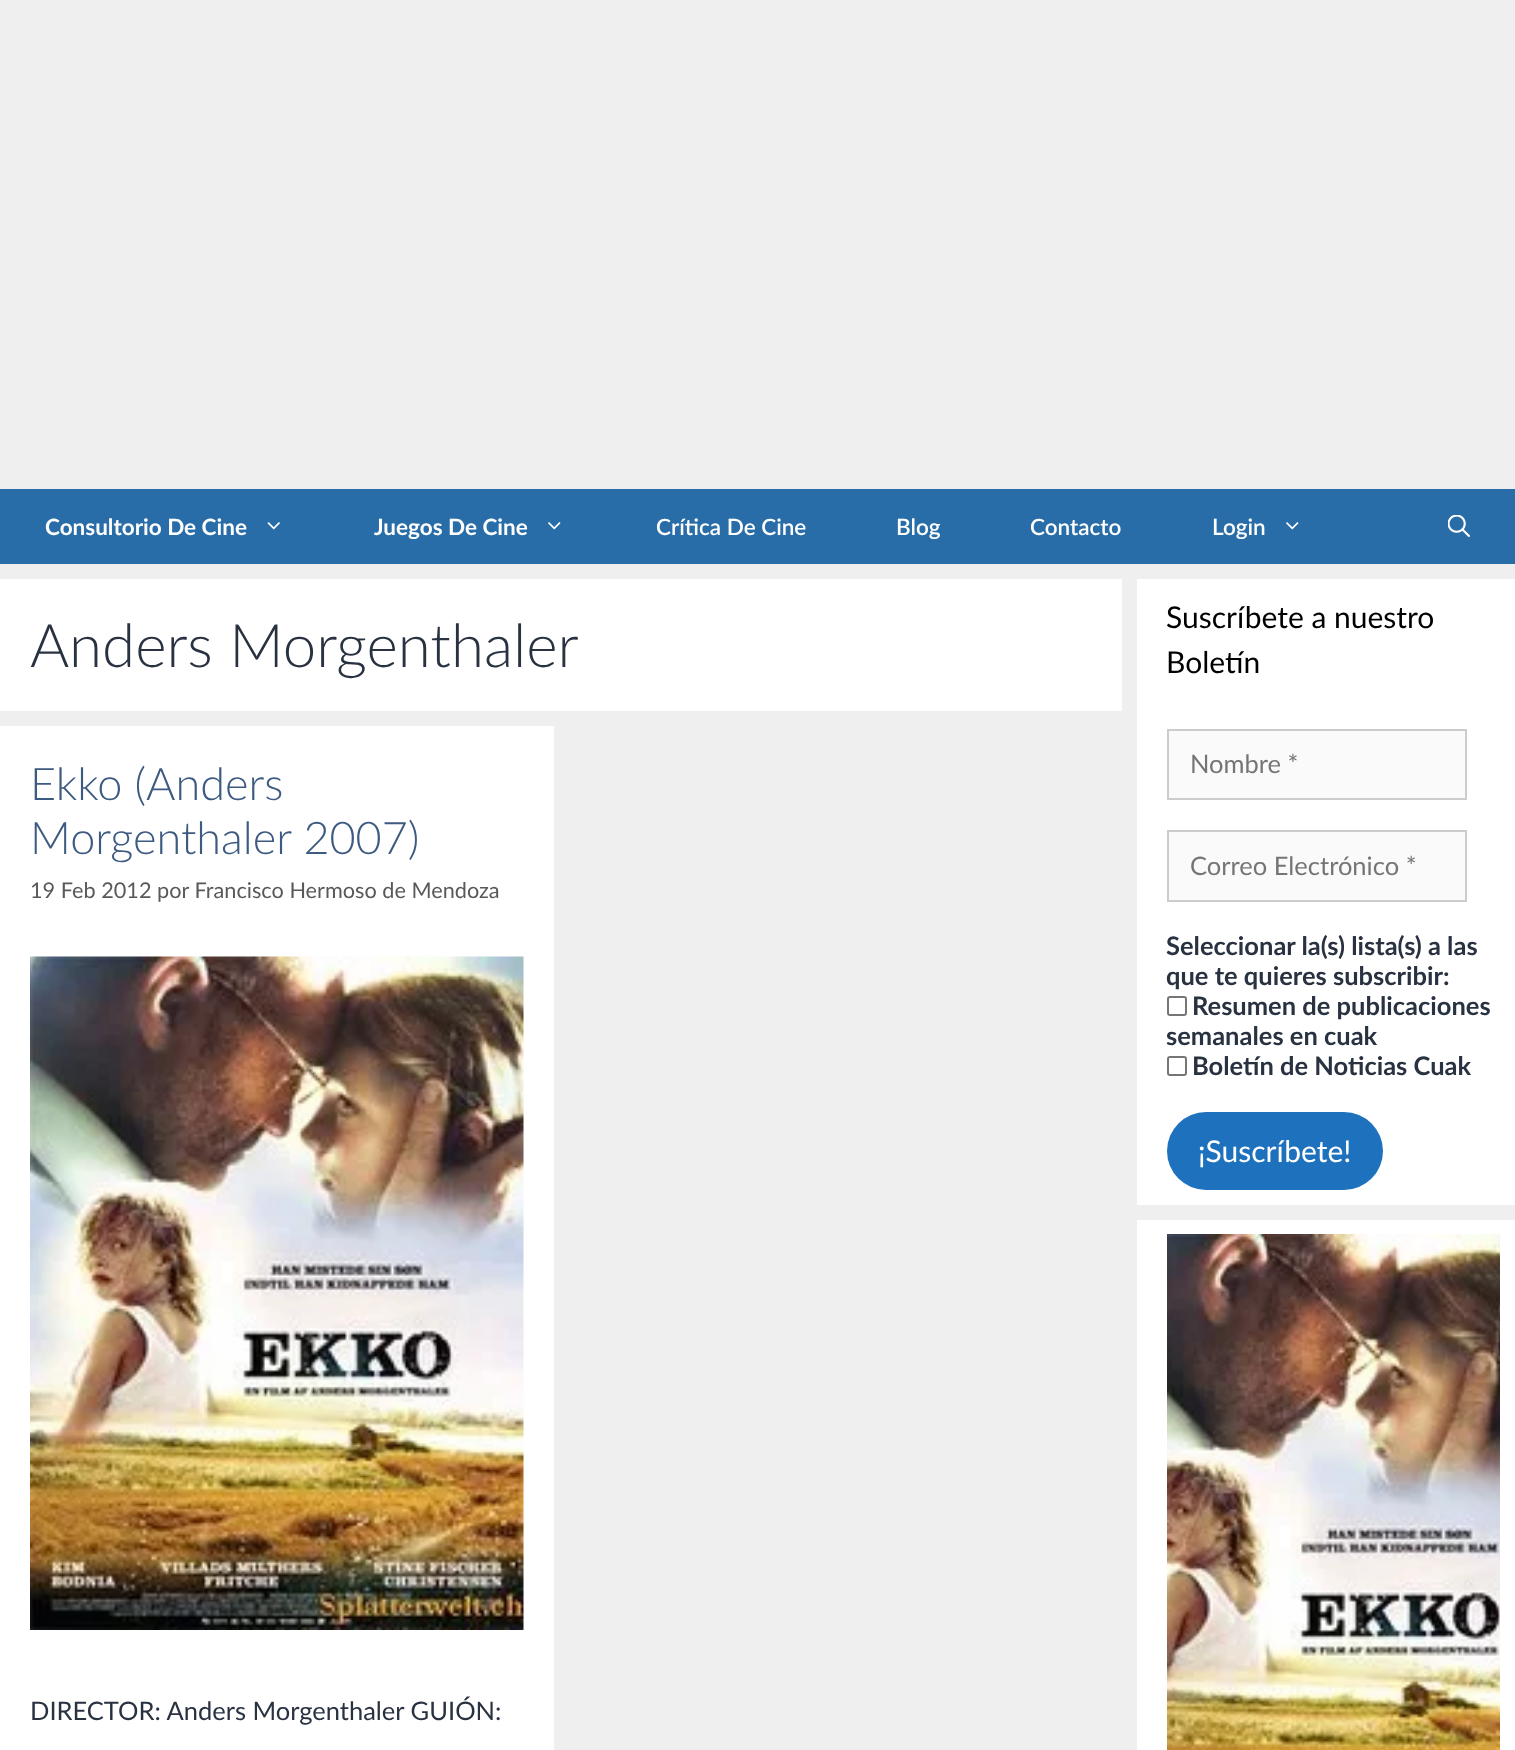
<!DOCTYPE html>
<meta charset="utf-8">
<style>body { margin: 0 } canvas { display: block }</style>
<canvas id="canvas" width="1515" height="1750"></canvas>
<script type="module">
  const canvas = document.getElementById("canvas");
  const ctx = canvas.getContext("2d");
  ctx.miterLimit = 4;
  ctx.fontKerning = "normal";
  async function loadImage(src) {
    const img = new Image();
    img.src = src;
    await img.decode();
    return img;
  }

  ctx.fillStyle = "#efefef";
  ctx.fillRect(0, 0, 1515, 1750);
  ctx.fillStyle = "#286da8";
  ctx.fillRect(0, 489, 1515, 75);
  ctx.font = "bold 22.5px Lato";
  ctx.fillStyle = "#ffffff";
  ctx.fillText("Consultorio De Cine", 45, 535);
  ctx.drawImage(await loadImage("img1.png"), 267, 522, 13, 8);
  ctx.fillText("Juegos De Cine", 374, 535);
  ctx.drawImage(await loadImage("img2.png"), 548, 522, 13, 8);
  ctx.font = "600 22.5px Lato";
  ctx.fillText("Crítica De Cine", 656, 535);
  ctx.fillText("Blog", 896, 535);
  ctx.fillText("Contacto", 1030, 535);
  ctx.fillText("Login", 1212, 535);
  ctx.drawImage(await loadImage("img2.png"), 1286, 522, 13, 8);
  ctx.drawImage(await loadImage("img3.png"), 1448, 515, 22, 22);
  ctx.fillRect(0, 579, 1122, 132);
  ctx.font = "300 60px Lato";
  ctx.fillStyle = "#293241";
  ctx.fillText("Anders Morgenthaler", 30, 667);
  ctx.fillStyle = "#ffffff";
  ctx.fillRect(0, 726, 554, 1024);
  ctx.font = "300 45px Lato";
  ctx.fillStyle = "#3d5a80";
  ctx.fillText("Ekko (Anders", 30, 800);
  ctx.fillText("Morgenthaler 2007)", 30, 854);
  ctx.font = "21.7px Lato";
  ctx.fillStyle = "#595959";
  ctx.fillText("19 Feb 2012 por Francisco Hermoso de Mendoza", 30, 898);
  ctx.drawImage(await loadImage("img4.png"), 30, 956, 494, 674);
  ctx.font = "25.5px Lato";
  ctx.fillStyle = "#293241";
  ctx.fillText("DIRECTOR: Anders Morgenthaler GUIÓN:", 30, 1720);
  ctx.fillStyle = "#ffffff";
  ctx.fillRect(1137, 579, 378, 626);
  ctx.font = "30px Lato";
  ctx.fillStyle = "#000000";
  ctx.fillText("Suscríbete a nuestro", 1166, 628);
  ctx.fillText("Boletín", 1166, 673);
  ctx.fillStyle = "#fafafa";
  ctx.beginPath();
  ctx.rect(1168, 730, 298, 69);
  ctx.fill();
  ctx.strokeStyle = "#cccccc";
  ctx.lineWidth = 2;
  ctx.stroke();
  ctx.font = "25.5px Lato";
  ctx.fillStyle = "#757575";
  ctx.fillText("Nombre *", 1190, 773);
  ctx.fillStyle = "#fafafa";
  ctx.beginPath();
  ctx.rect(1168, 831, 298, 70);
  ctx.fill();
  ctx.stroke();
  ctx.fillStyle = "#757575";
  ctx.fillText("Correo Electrónico *", 1190, 875);
  ctx.font = "bold 25.5px Lato";
  ctx.fillStyle = "#293241";
  ctx.fillText("Seleccionar la(s) lista(s) a las", 1166, 955);
  ctx.fillText("que te quieres subscribir:", 1166, 985);
  ctx.beginPath();
  ctx.roundRect(1168, 997, 18, 18, 2);
  ctx.strokeStyle = "#767676";
  ctx.stroke();
  ctx.fillText("Resumen de publicaciones", 1192, 1015);
  ctx.fillText("semanales en cuak", 1166, 1045);
  ctx.beginPath();
  ctx.roundRect(1168, 1057, 18, 18, 2);
  ctx.stroke();
  ctx.fillText("Boletín de Noticias Cuak", 1192, 1075);
  ctx.fillStyle = "#1e72bd";
  ctx.beginPath();
  ctx.roundRect(1167, 1112, 216, 78, 39);
  ctx.fill();
  ctx.font = "30px Lato";
  ctx.fillStyle = "#ffffff";
  ctx.fillText("¡Suscríbete!", 1198, 1162);
  ctx.fillRect(1137, 1220, 378, 530);
  ctx.drawImage(await loadImage("img5.png"), 1167, 1234, 333, 516);
</script>
